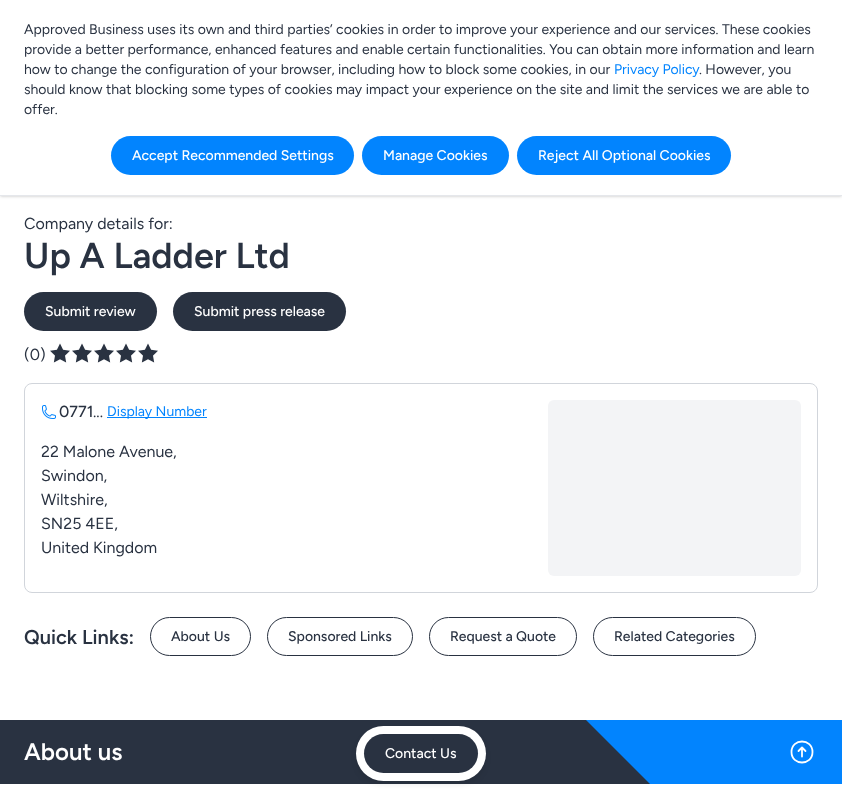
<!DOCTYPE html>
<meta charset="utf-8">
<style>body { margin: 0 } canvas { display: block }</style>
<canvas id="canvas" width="842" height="805"></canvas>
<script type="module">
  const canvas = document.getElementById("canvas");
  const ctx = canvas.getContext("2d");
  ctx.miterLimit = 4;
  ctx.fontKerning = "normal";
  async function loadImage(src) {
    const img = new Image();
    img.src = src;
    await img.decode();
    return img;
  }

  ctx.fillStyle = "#ffffff";
  ctx.fillRect(0, 0, 842, 805);
  ctx.fillStyle = "rgba(0, 0, 0, 0.1)";
  ctx.filter = "blur(1px)";
  ctx.beginPath();
  ctx.rect(1, 2, 840, 194);
  ctx.fill();
  ctx.filter = "none";
  ctx.filter = "blur(1.5px)";
  ctx.beginPath();
  ctx.rect(0, 1, 842, 196);
  ctx.fill();
  ctx.filter = "none";
  ctx.fillStyle = "#ffffff";
  ctx.fillRect(0, 0, 842, 195);
  ctx.fillStyle = "#e5e7eb";
  ctx.fillRect(0, 195, 842, 1);
  ctx.font = "14px Figtree";
  ctx.fillStyle = "#293241";
  ctx.fillText("Approved Business uses its own and third parties’ cookies in order to improve your experience and our services. These cookies", 24, 34);
  ctx.fillText("provide a better performance, enhanced features and enable certain functionalities. You can obtain more information and learn", 24, 54);
  ctx.fillText("how to change the configuration of your browser, including how to block some cookies, in our", 24, 74);
  ctx.fillStyle = "#0284fe";
  ctx.fillText("Privacy Policy", 614, 74);
  ctx.fillStyle = "#293241";
  ctx.fillText(". However, you", 699, 74);
  ctx.fillText("should know that blocking some types of cookies may impact your experience on the site and limit the services we are able to", 24, 94);
  ctx.fillText("offer.", 24, 114);
  ctx.fillStyle = "#0284fe";
  ctx.beginPath();
  ctx.roundRect(111, 136, 243, 39, 19.5);
  ctx.fill();
  ctx.font = "500 14px Figtree";
  ctx.fillStyle = "#ffffff";
  ctx.fillText("Accept Recommended Settings", 132, 160);
  ctx.fillStyle = "#0284fe";
  ctx.beginPath();
  ctx.roundRect(362, 136, 147, 39, 19.5);
  ctx.fill();
  ctx.fillStyle = "#ffffff";
  ctx.fillText("Manage Cookies", 383, 160);
  ctx.fillStyle = "#0284fe";
  ctx.beginPath();
  ctx.roundRect(517, 136, 214, 39, 19.5);
  ctx.fill();
  ctx.fillStyle = "#ffffff";
  ctx.fillText("Reject All Optional Cookies", 538, 160);
  ctx.font = "16px Figtree";
  ctx.fillStyle = "#293241";
  ctx.fillText("Company details for:", 24, 229);
  ctx.font = "600 36px Figtree";
  ctx.fillText("Up A Ladder Ltd", 24, 268);
  ctx.beginPath();
  ctx.roundRect(24, 292, 133, 39, 19.5);
  ctx.fill();
  ctx.font = "500 14px Figtree";
  ctx.fillStyle = "#ffffff";
  ctx.fillText("Submit review", 45, 316);
  ctx.fillStyle = "#293241";
  ctx.beginPath();
  ctx.roundRect(173, 292, 173, 39, 19.5);
  ctx.fill();
  ctx.fillStyle = "#ffffff";
  ctx.fillText("Submit press release", 194, 316);
  ctx.font = "16px Figtree";
  ctx.fillStyle = "#293241";
  ctx.fillText("(0)", 24, 360);
  ctx.drawImage(await loadImage("img1.png"), 50, 343, 20, 20);
  ctx.drawImage(await loadImage("img1.png"), 72, 343, 20, 20);
  ctx.drawImage(await loadImage("img1.png"), 94, 343, 20, 20);
  ctx.drawImage(await loadImage("img1.png"), 116, 343, 20, 20);
  ctx.drawImage(await loadImage("img1.png"), 138, 343, 20, 20);
  ctx.beginPath();
  ctx.roundRect(24.5, 383.5, 793, 209, 7.5);
  ctx.strokeStyle = "#d1d5db";
  ctx.stroke();
  ctx.drawImage(await loadImage("img2.png"), 42, 405, 14, 14);
  ctx.font = "500 16px Figtree";
  ctx.fillText("0771", 59, 417);
  ctx.font = "16px Figtree";
  ctx.fillText("...", 93, 417);
  ctx.fillStyle = "#0284fe";
  ctx.fillRect(107, 417, 100, 1);
  ctx.font = "14px Figtree";
  ctx.fillText("Display Number", 107, 416);
  ctx.font = "16px Figtree";
  ctx.fillStyle = "#293241";
  ctx.fillText("22 Malone Avenue,", 41, 457);
  ctx.fillText("Swindon,", 41, 481);
  ctx.fillText("Wiltshire,", 41, 505);
  ctx.fillText("SN25 4EE,", 41, 529);
  ctx.fillText("United Kingdom", 41, 553);
  ctx.fillStyle = "#f3f4f6";
  ctx.beginPath();
  ctx.roundRect(548, 400, 253, 176, 6);
  ctx.fill();
  ctx.font = "600 20px Figtree";
  ctx.fillStyle = "#293241";
  ctx.fillText("Quick Links:", 24, 644);
  ctx.beginPath();
  ctx.roundRect(150.5, 617.5, 100, 38, 19);
  ctx.strokeStyle = "#293241";
  ctx.stroke();
  ctx.font = "500 14px Figtree";
  ctx.fillText("About Us", 171, 641);
  ctx.beginPath();
  ctx.roundRect(267.5, 617.5, 145, 38, 19);
  ctx.stroke();
  ctx.fillText("Sponsored Links", 288, 641);
  ctx.beginPath();
  ctx.roundRect(429.5, 617.5, 147, 38, 19);
  ctx.stroke();
  ctx.fillText("Request a Quote", 450, 641);
  ctx.beginPath();
  ctx.roundRect(593.5, 617.5, 162, 38, 19);
  ctx.stroke();
  ctx.fillText("Related Categories", 614, 641);
  ctx.fillRect(0, 720, 650, 64);
  ctx.font = "600 24px Figtree";
  ctx.fillStyle = "#ffffff";
  ctx.fillText("About us", 24, 760);
  ctx.fillStyle = "#0284fe";
  ctx.beginPath();
  ctx.moveTo(586, 720);
  ctx.lineTo(650, 784);
  ctx.lineTo(842, 784);
  ctx.lineTo(842, 720);
  ctx.closePath();
  ctx.fill();
  ctx.beginPath();
  ctx.moveTo(805.5, 751);
  ctx.lineTo(802, 747.5);
  ctx.moveTo(802, 747.5);
  ctx.lineTo(798.5, 751);
  ctx.moveTo(802, 747.5);
  ctx.lineTo(802, 756.5);
  ctx.moveTo(812.5, 752);
  ctx.bezierCurveTo(812.5, 766, 791.5, 766, 791.5, 752);
  ctx.bezierCurveTo(791.5, 738, 812.5, 738, 812.5, 752);
  ctx.closePath();
  ctx.strokeStyle = "#ffffff";
  ctx.lineWidth = 1.8;
  ctx.lineCap = "round";
  ctx.lineJoin = "round";
  ctx.stroke();
  ctx.fillStyle = "rgba(0, 0, 0, 0.1)";
  ctx.filter = "blur(3px)";
  ctx.beginPath();
  ctx.roundRect(357, 731, 128, 53, 26.5);
  ctx.fill();
  ctx.filter = "none";
  ctx.fillStyle = "#ffffff";
  ctx.beginPath();
  ctx.roundRect(356, 726, 130, 55, 27.5);
  ctx.fill();
  ctx.fillStyle = "#293241";
  ctx.beginPath();
  ctx.roundRect(364, 734, 114, 39, 19.5);
  ctx.fill();
  ctx.font = "500 14px Figtree";
  ctx.fillStyle = "#ffffff";
  ctx.fillText("Contact Us", 385, 758);
</script>
